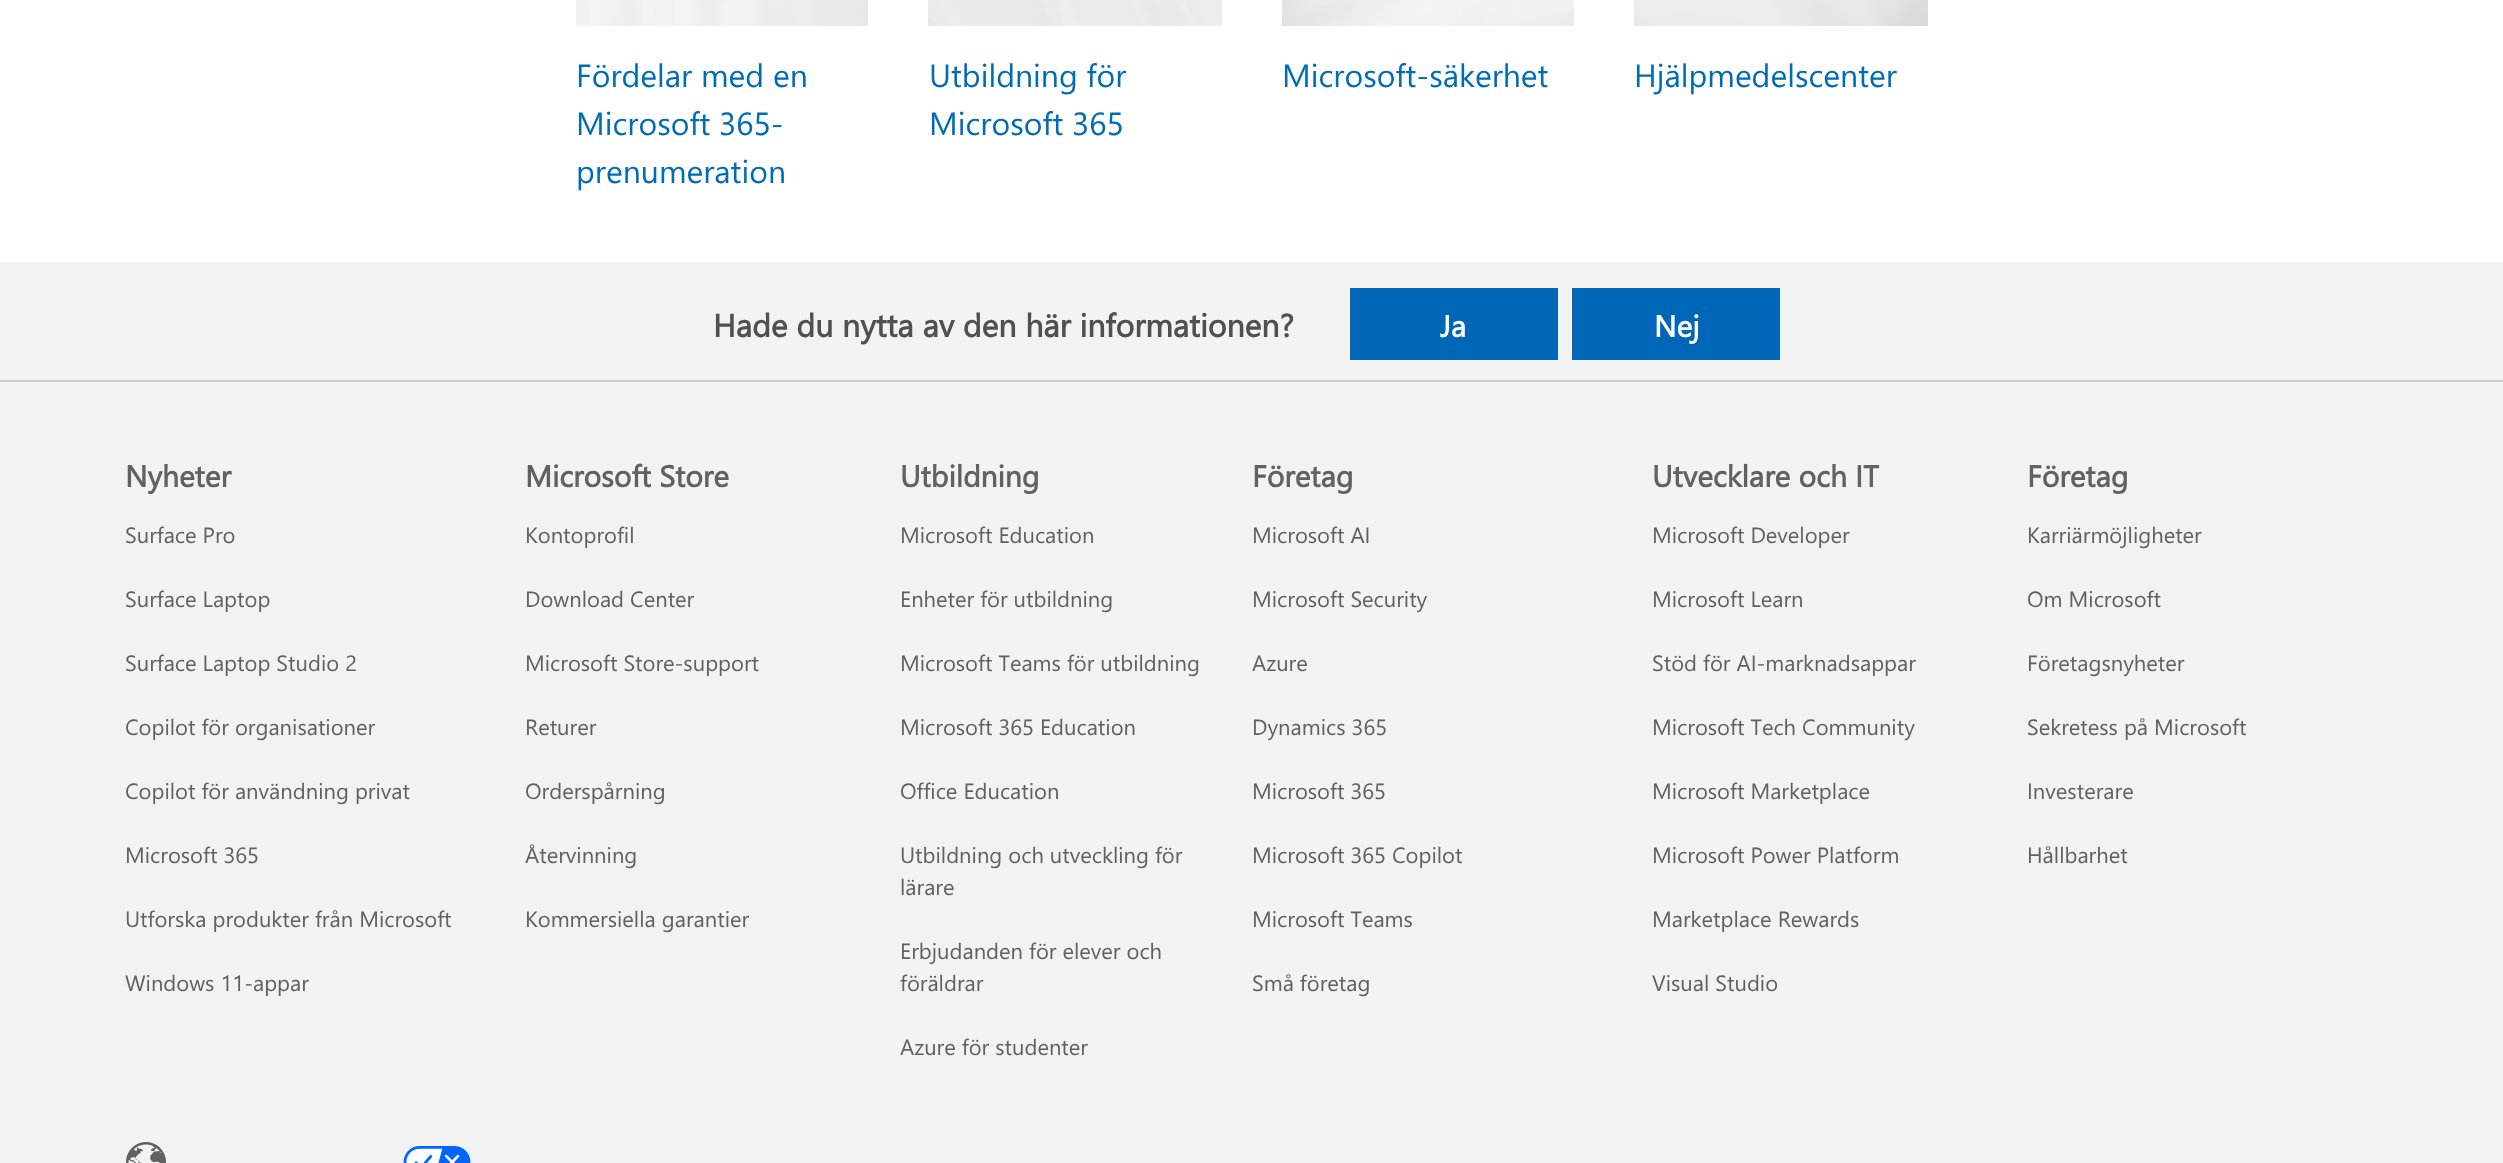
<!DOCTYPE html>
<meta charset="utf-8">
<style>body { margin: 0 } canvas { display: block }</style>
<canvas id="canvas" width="2503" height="1163"></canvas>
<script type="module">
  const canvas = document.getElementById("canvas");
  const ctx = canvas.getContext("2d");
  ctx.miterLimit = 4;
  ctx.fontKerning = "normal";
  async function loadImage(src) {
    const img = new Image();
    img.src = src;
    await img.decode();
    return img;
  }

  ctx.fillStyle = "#ffffff";
  ctx.fillRect(0, 0, 2503, 1163);
  ctx.drawImage(await loadImage("img1.png"), 576, 0, 292, 26);
  ctx.font = "32px Segoe UI";
  ctx.fillStyle = "#006cb4";
  ctx.fillText("Fördelar med en", 576, 87);
  ctx.fillText("Microsoft 365-", 576, 135);
  ctx.fillText("prenumeration", 576, 183);
  ctx.drawImage(await loadImage("img2.png"), 928, 0, 294, 26);
  ctx.fillText("Utbildning för", 929, 87);
  ctx.fillText("Microsoft 365", 929, 135);
  ctx.drawImage(await loadImage("img3.png"), 1282, 0, 292, 26);
  ctx.fillText("Microsoft-säkerhet", 1282, 87);
  ctx.drawImage(await loadImage("img4.png"), 1634, 0, 294, 26);
  ctx.fillText("Hjälpmedelscenter", 1634, 87);
  ctx.fillStyle = "#f2f2f2";
  ctx.fillRect(0, 262, 2503, 118);
  ctx.fillStyle = "#cecece";
  ctx.fillRect(0, 380, 2503, 2);
  ctx.font = "bold 32px Segoe UI";
  ctx.fillStyle = "#505050";
  ctx.fillText("Hade du nytta av den här informationen?", 713, 337);
  ctx.fillStyle = "#0067b8";
  ctx.fillRect(1350, 288, 208, 72);
  ctx.font = "bold 30px Segoe UI";
  ctx.fillStyle = "#ffffff";
  ctx.fillText("Ja", 1440, 337);
  ctx.fillStyle = "#0067b8";
  ctx.fillRect(1572, 288, 208, 72);
  ctx.fillStyle = "#ffffff";
  ctx.fillText("Nej", 1654, 337);
  ctx.fillStyle = "#f2f2f2";
  ctx.fillRect(0, 382, 2503, 781);
  ctx.fillStyle = "#616161";
  ctx.fillText("Nyheter", 125, 487);
  ctx.font = "22px Segoe UI";
  ctx.fillText("Surface Pro", 125, 543);
  ctx.fillText("Surface Laptop", 125, 607);
  ctx.fillText("Surface Laptop Studio 2", 125, 671);
  ctx.fillText("Copilot för organisationer", 125, 735);
  ctx.fillText("Copilot för användning privat", 125, 799);
  ctx.fillText("Microsoft 365", 125, 863);
  ctx.fillText("Utforska produkter från Microsoft", 125, 927);
  ctx.fillText("Windows 11-appar", 125, 991);
  ctx.font = "bold 30px Segoe UI";
  ctx.fillText("Microsoft Store", 525, 487);
  ctx.font = "22px Segoe UI";
  ctx.fillText("Kontoprofil", 525, 543);
  ctx.fillText("Download Center", 525, 607);
  ctx.fillText("Microsoft Store-support", 525, 671);
  ctx.fillText("Returer", 525, 735);
  ctx.fillText("Orderspårning", 525, 799);
  ctx.fillText("Återvinning", 525, 863);
  ctx.fillText("Kommersiella garantier", 525, 927);
  ctx.font = "bold 30px Segoe UI";
  ctx.fillText("Utbildning", 900, 487);
  ctx.font = "22px Segoe UI";
  ctx.fillText("Microsoft Education", 900, 543);
  ctx.fillText("Enheter för utbildning", 900, 607);
  ctx.fillText("Microsoft Teams för utbildning", 900, 671);
  ctx.fillText("Microsoft 365 Education", 900, 735);
  ctx.fillText("Office Education", 900, 799);
  ctx.fillText("Utbildning och utveckling för", 900, 863);
  ctx.fillText("lärare", 900, 895);
  ctx.fillText("Erbjudanden för elever och", 900, 959);
  ctx.fillText("föräldrar", 900, 991);
  ctx.fillText("Azure för studenter", 900, 1055);
  ctx.font = "bold 30px Segoe UI";
  ctx.fillText("Företag", 1252, 487);
  ctx.font = "22px Segoe UI";
  ctx.fillText("Microsoft AI", 1252, 543);
  ctx.fillText("Microsoft Security", 1252, 607);
  ctx.fillText("Azure", 1252, 671);
  ctx.fillText("Dynamics 365", 1252, 735);
  ctx.fillText("Microsoft 365", 1252, 799);
  ctx.fillText("Microsoft 365 Copilot", 1252, 863);
  ctx.fillText("Microsoft Teams", 1252, 927);
  ctx.fillText("Små företag", 1252, 991);
  ctx.font = "bold 30px Segoe UI";
  ctx.fillText("Utvecklare och IT", 1652, 487);
  ctx.font = "22px Segoe UI";
  ctx.fillText("Microsoft Developer", 1652, 543);
  ctx.fillText("Microsoft Learn", 1652, 607);
  ctx.fillText("Stöd för AI-marknadsappar", 1652, 671);
  ctx.fillText("Microsoft Tech Community", 1652, 735);
  ctx.fillText("Microsoft Marketplace", 1652, 799);
  ctx.fillText("Microsoft Power Platform", 1652, 863);
  ctx.fillText("Marketplace Rewards", 1652, 927);
  ctx.fillText("Visual Studio", 1652, 991);
  ctx.font = "bold 30px Segoe UI";
  ctx.fillText("Företag", 2027, 487);
  ctx.font = "22px Segoe UI";
  ctx.fillText("Karriärmöjligheter", 2027, 543);
  ctx.fillText("Om Microsoft", 2027, 607);
  ctx.fillText("Företagsnyheter", 2027, 671);
  ctx.fillText("Sekretess på Microsoft", 2027, 735);
  ctx.fillText("Investerare", 2027, 799);
  ctx.fillText("Hållbarhet", 2027, 863);
  ctx.drawImage(await loadImage("img5.png"), 126, 1142, 40, 21);
  ctx.drawImage(await loadImage("img6.png"), 403, 1146, 68, 17);
</script>
